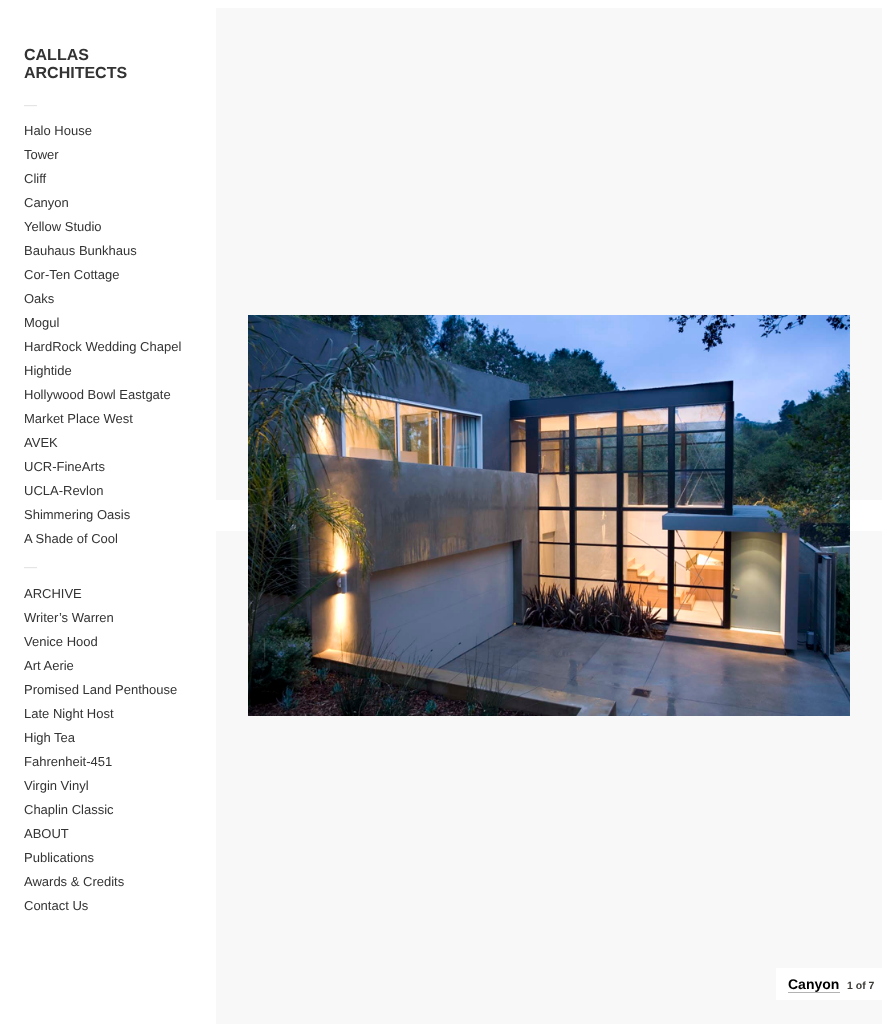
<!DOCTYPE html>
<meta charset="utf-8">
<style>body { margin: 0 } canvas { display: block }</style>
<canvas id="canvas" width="890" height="1032"></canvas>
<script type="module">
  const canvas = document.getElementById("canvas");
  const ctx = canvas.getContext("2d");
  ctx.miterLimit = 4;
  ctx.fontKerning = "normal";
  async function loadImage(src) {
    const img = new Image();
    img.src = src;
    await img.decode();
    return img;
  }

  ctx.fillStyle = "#ffffff";
  ctx.fillRect(0, 0, 890, 1032);
  ctx.font = "bold 16px Liberation Sans";
  ctx.fillStyle = "#333333";
  ctx.fillText("CALLAS", 24, 60);
  ctx.fillText("ARCHITECTS", 24, 78);
  ctx.font = "13px Liberation Sans";
  ctx.fillStyle = "#dddddd";
  ctx.fillText("—", 24, 109);
  ctx.fillStyle = "#333333";
  ctx.fillText("Halo House", 24, 135);
  ctx.fillText("Tower", 24, 159);
  ctx.fillText("Cliff", 24, 183);
  ctx.fillText("Canyon", 24, 207);
  ctx.fillText("Yellow Studio", 24, 231);
  ctx.fillText("Bauhaus Bunkhaus", 24, 255);
  ctx.fillText("Cor-Ten Cottage", 24, 279);
  ctx.fillText("Oaks", 24, 303);
  ctx.fillText("Mogul", 24, 327);
  ctx.fillText("HardRock Wedding Chapel", 24, 351);
  ctx.fillText("Hightide", 24, 375);
  ctx.fillText("Hollywood Bowl Eastgate", 24, 399);
  ctx.fillText("Market Place West", 24, 423);
  ctx.fillText("AVEK", 24, 447);
  ctx.fillText("UCR-FineArts", 24, 471);
  ctx.fillText("UCLA-Revlon", 24, 495);
  ctx.fillText("Shimmering Oasis", 24, 519);
  ctx.fillText("A Shade of Cool", 24, 543);
  ctx.fillStyle = "#dddddd";
  ctx.fillText("—", 24, 571);
  ctx.fillStyle = "#333333";
  ctx.fillText("ARCHIVE", 24, 598);
  ctx.fillText("Writer’s Warren", 24, 622);
  ctx.fillText("Venice Hood", 24, 646);
  ctx.fillText("Art Aerie", 24, 670);
  ctx.fillText("Promised Land Penthouse", 24, 694);
  ctx.fillText("Late Night Host", 24, 718);
  ctx.fillText("High Tea", 24, 742);
  ctx.fillText("Fahrenheit-451", 24, 766);
  ctx.fillText("Virgin Vinyl", 24, 790);
  ctx.fillText("Chaplin Classic", 24, 814);
  ctx.fillText("ABOUT", 24, 838);
  ctx.fillText("Publications", 24, 862);
  ctx.fillText("Awards & Credits", 24, 886);
  ctx.fillText("Contact Us", 24, 910);
  ctx.fillStyle = "#f8f8f8";
  ctx.fillRect(216, 8, 666, 1016);
  ctx.drawImage(await loadImage("img1.png"), 248, 315, 602, 401);
  ctx.fillStyle = "#ffffff";
  ctx.fillRect(216, 500, 32, 31);
  ctx.fillRect(850, 500, 32, 31);
  ctx.fillRect(776, 968, 106, 32);
  ctx.font = "bold 14px Liberation Sans";
  ctx.fillStyle = "#000000";
  ctx.fillText("Canyon", 788, 989);
  ctx.fillStyle = "#b3b3b3";
  ctx.fillRect(788, 992, 52, 1);
  ctx.font = "bold 10.5px Liberation Sans";
  ctx.fillStyle = "#3b3a37";
  ctx.fillText("1 of 7", 847, 989);
</script>
